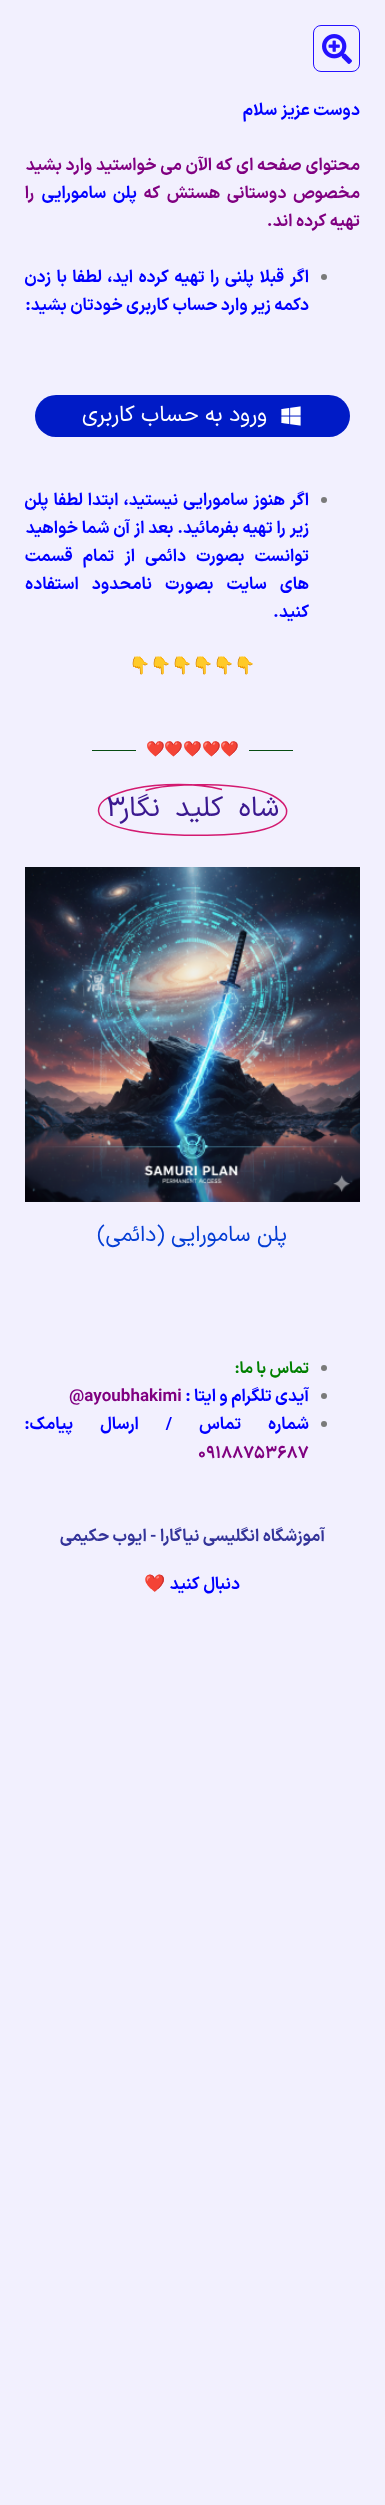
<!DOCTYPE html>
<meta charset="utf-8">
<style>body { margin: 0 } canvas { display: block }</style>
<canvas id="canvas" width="385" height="2505"></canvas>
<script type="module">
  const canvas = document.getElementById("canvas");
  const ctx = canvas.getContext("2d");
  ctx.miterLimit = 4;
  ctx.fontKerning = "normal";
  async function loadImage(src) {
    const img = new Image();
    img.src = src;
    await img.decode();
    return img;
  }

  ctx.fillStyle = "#f2f0fe";
  ctx.fillRect(0, 0, 385, 2505);
  ctx.beginPath();
  ctx.roundRect(313.5, 25.5, 46, 46, 7.5);
  ctx.strokeStyle = "#2511ff";
  ctx.stroke();
  ctx.drawImage(await loadImage("img1.png"), 322, 34, 30, 30);
  ctx.direction = "rtl";
  ctx.font = "bold 17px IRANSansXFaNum";
  ctx.fillStyle = "#0000ff";
  ctx.fillText("دوست عزیز سلام", 360, 115);
  ctx.wordSpacing = "0.25px";
  ctx.fillStyle = "#800080";
  ctx.fillText("محتوای صفحه ای که الآن می خواستید وارد بشید", 360, 170);
  ctx.wordSpacing = "3px";
  ctx.fillText("مخصوص دوستانی هستش که", 360, 198);
  ctx.fillStyle = "#0000ff";
  ctx.fillText("پلن سامورایی", 137, 198);
  ctx.wordSpacing = "0px";
  ctx.fillStyle = "#800080";
  ctx.fillText("را", 34, 198);
  ctx.fillText("تهیه کرده اند.", 360, 226);
  ctx.fillStyle = "#7a7a7a";
  ctx.beginPath();
  ctx.arc(324, 277, 3, 0, Math.PI * 2);
  ctx.fill();
  ctx.wordSpacing = "2px";
  ctx.fillStyle = "#0000ff";
  ctx.fillText("اگر قبلا پلنی را تهیه کرده اید، لطفا با زدن", 309, 282);
  ctx.wordSpacing = "0px";
  ctx.fillText("دکمه زیر وارد حساب کاربری خودتان بشید:", 309, 310);
  ctx.fillStyle = "#001bc6";
  ctx.beginPath();
  ctx.roundRect(35, 395, 315, 42, 21);
  ctx.fill();
  ctx.drawImage(await loadImage("img2.png"), 281, 406, 20, 20);
  ctx.font = "22px IRANSansXFaNum";
  ctx.fillStyle = "#ffffff";
  ctx.fillText("ورود به حساب کاربری", 267, 421);
  ctx.fillStyle = "#7a7a7a";
  ctx.beginPath();
  ctx.arc(324, 500, 3, 0, Math.PI * 2);
  ctx.fill();
  ctx.wordSpacing = "1.5px";
  ctx.font = "bold 17px IRANSansXFaNum";
  ctx.fillStyle = "#0000ff";
  ctx.fillText("اگر هنوز سامورایی نیستید، ابتدا لطفا پلن", 309, 505);
  ctx.wordSpacing = "0.25px";
  ctx.fillText("زیر را تهیه بفرمائید. بعد از آن شما خواهید", 309, 533);
  ctx.wordSpacing = "6.5px";
  ctx.fillText("توانست بصورت دائمی از تمام قسمت", 309, 561);
  ctx.wordSpacing = "9.5px";
  ctx.fillText("های سایت بصورت نامحدود استفاده", 309, 589);
  ctx.wordSpacing = "0px";
  ctx.fillText("کنید.", 309, 617);
  ctx.direction = "ltr";
  ctx.font = "17px Noto Color Emoji";
  ctx.fillStyle = "#7a7a7a";
  ctx.fillText("👇👇👇👇👇👇", 129, 671);
  ctx.fillStyle = "#074c12";
  ctx.fillRect(249, 750, 44, 1);
  ctx.font = "15px Noto Color Emoji";
  ctx.fillStyle = "#54595f";
  ctx.fillText("❤️❤️❤️❤️❤️", 146, 754);
  ctx.fillStyle = "#074c12";
  ctx.fillRect(92, 750, 44, 1);
  ctx.beginPath();
  ctx.moveTo(222, 789.5);
  ctx.bezierCurveTo(185, 780, 142, 786, 126.5, 790.5);
  ctx.bezierCurveTo(105, 797, 98.5, 802.5, 98.5, 811);
  ctx.bezierCurveTo(99, 822.5, 119, 830, 153.5, 833.5);
  ctx.bezierCurveTo(179.5, 836, 235.5, 836.5, 259.5, 830.5);
  ctx.bezierCurveTo(284, 825, 299.5, 810, 272.5, 795.5);
  ctx.bezierCurveTo(246, 781.5, 165.5, 782.5, 145.5, 790.5);
  ctx.strokeStyle = "#d31a70";
  ctx.lineWidth = 1.5;
  ctx.stroke();
  ctx.letterSpacing = "-2px";
  ctx.wordSpacing = "9px";
  ctx.direction = "rtl";
  ctx.font = "28px IRANSansXFaNum";
  ctx.fillStyle = "#3a188f";
  ctx.fillText("شاه کلید نگار", 279, 816);
  ctx.wordSpacing = "0px";
  ctx.direction = "ltr";
  ctx.fillText("۳", 106, 816);
  ctx.drawImage(await loadImage("img3.png"), 25, 867, 335, 335);
  ctx.letterSpacing = "0px";
  ctx.direction = "rtl";
  ctx.font = "22px IRANSansXFaNum";
  ctx.fillStyle = "#043dd4";
  ctx.fillText("پلن سامورایی (دائمی)", 287, 1241);
  ctx.fillStyle = "#7a7a7a";
  ctx.beginPath();
  ctx.arc(324, 1368, 3, 0, Math.PI * 2);
  ctx.fill();
  ctx.font = "bold 16px IRANSansXFaNum";
  ctx.fillStyle = "#008000";
  ctx.fillText("تماس با ما:", 309, 1373);
  ctx.fillStyle = "#7a7a7a";
  ctx.beginPath();
  ctx.arc(324, 1396, 3, 0, Math.PI * 2);
  ctx.fill();
  ctx.font = "bold 17px IRANSansXFaNum";
  ctx.fillStyle = "#0000ff";
  ctx.fillText("آیدی تلگرام و ایتا :", 309, 1401);
  ctx.direction = "ltr";
  ctx.fillStyle = "#800080";
  ctx.fillText("@ayoubhakimi", 69, 1401);
  ctx.fillStyle = "#7a7a7a";
  ctx.beginPath();
  ctx.arc(324, 1424, 3, 0, Math.PI * 2);
  ctx.fill();
  ctx.wordSpacing = "23.5px";
  ctx.direction = "rtl";
  ctx.fillStyle = "#0000ff";
  ctx.fillText("شماره تماس / ارسال پیامک:", 309, 1429);
  ctx.wordSpacing = "0px";
  ctx.direction = "ltr";
  ctx.fillStyle = "#800080";
  ctx.fillText("۰۹۱۸۸۷۵۳۶۸۷", 198, 1458);
  ctx.direction = "rtl";
  ctx.fillStyle = "#333399";
  ctx.fillText("آموزشگاه انگلیسی نیاگارا - ایوب حکیمی", 325, 1541);
  ctx.fillStyle = "#0000ff";
  ctx.fillText("دنبال کنید", 240, 1589);
  ctx.font = "bold 17px Noto Color Emoji";
  ctx.fillText("❤️", 166, 1589);
</script>
